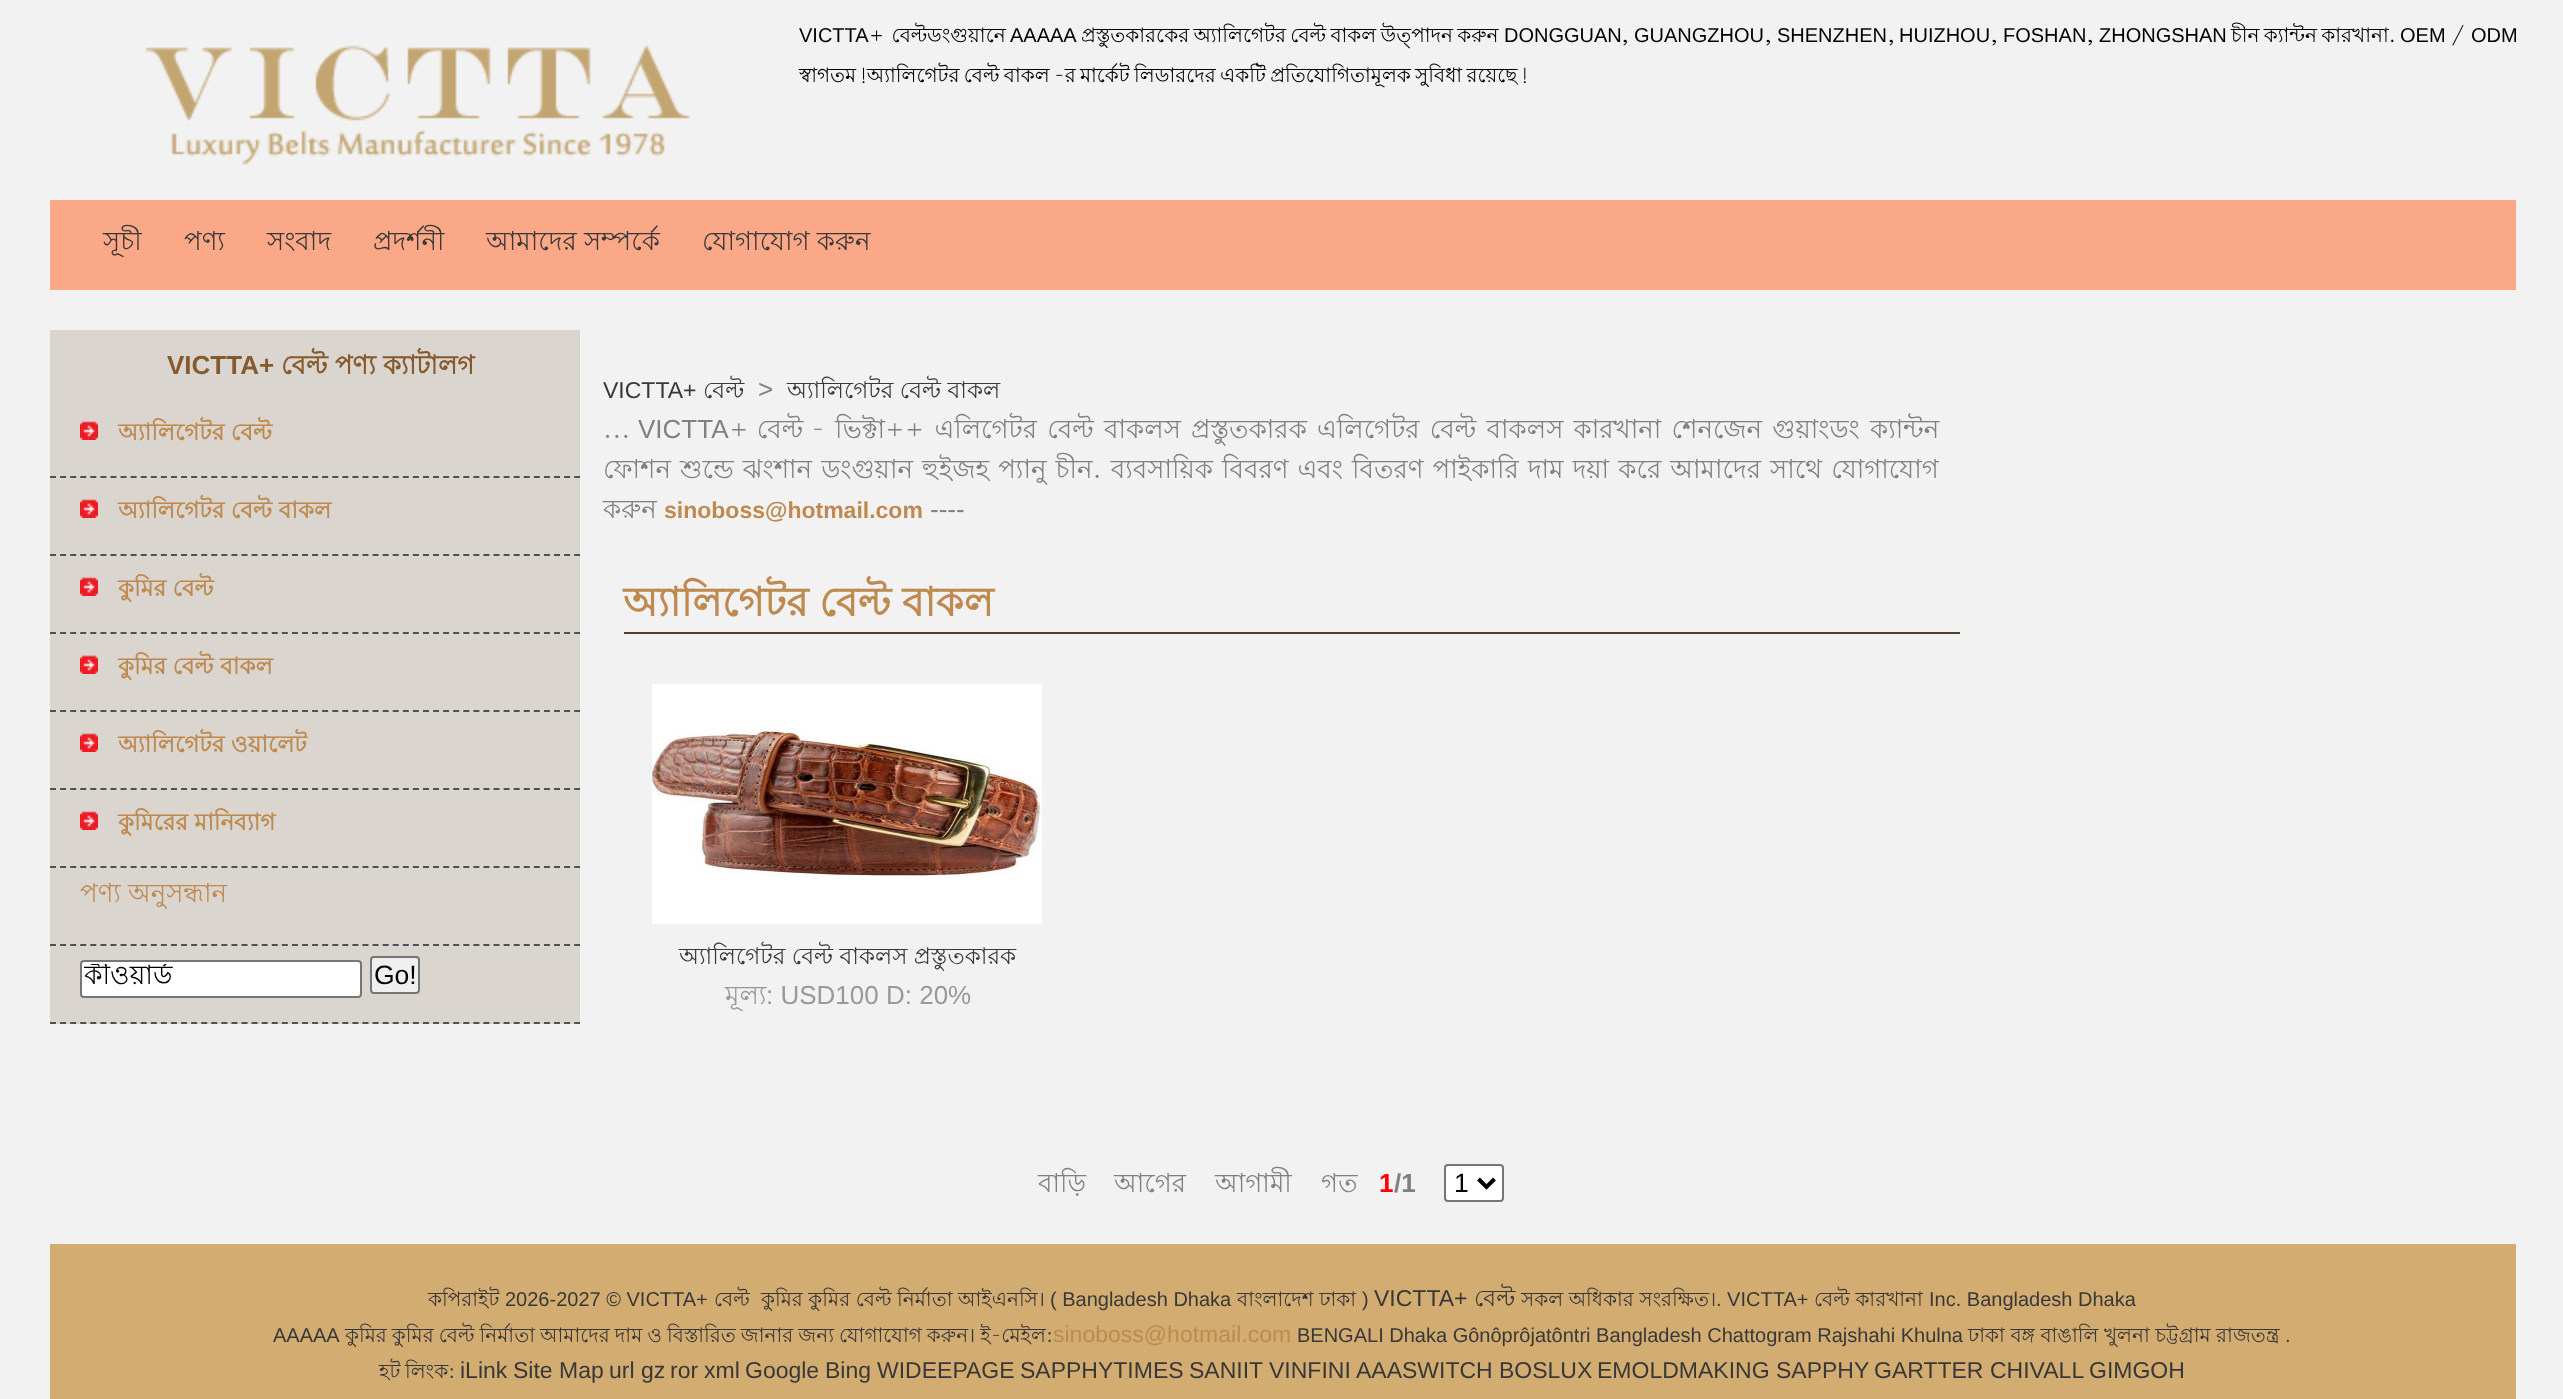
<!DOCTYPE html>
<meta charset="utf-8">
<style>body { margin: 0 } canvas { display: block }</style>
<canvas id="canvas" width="2563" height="1399"></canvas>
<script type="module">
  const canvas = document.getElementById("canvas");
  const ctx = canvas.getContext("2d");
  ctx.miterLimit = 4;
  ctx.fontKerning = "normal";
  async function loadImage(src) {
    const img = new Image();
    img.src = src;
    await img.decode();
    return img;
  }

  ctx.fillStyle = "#f2f2f2";
  ctx.fillRect(0, 0, 2563, 1399);
  ctx.drawImage(await loadImage("img1.png"), 145, 45, 546, 120);
  ctx.font = "20px Liberation Sans";
  ctx.fillStyle = "#000000";
  ctx.fillText("VICTTA", 799, 42);
  ctx.wordSpacing = "2px";
  ctx.font = "20px Lohit Bengali";
  ctx.fillText("+ বেল্ট", 869, 42);
  ctx.wordSpacing = "0px";
  ctx.fillText("ডংগুয়ানে", 927, 42);
  ctx.font = "20px Liberation Sans";
  ctx.fillText("AAAAA", 1010, 42);
  ctx.wordSpacing = "-1.25px";
  ctx.font = "20px Lohit Bengali";
  ctx.fillText("প্রস্তুতকারকের অ্যালিগেটর বেল্ট বাকল উত্পাদন করুন", 1081, 42);
  ctx.wordSpacing = "0px";
  ctx.font = "20px Liberation Sans";
  ctx.fillText("DONGGUAN", 1504, 42);
  ctx.font = "20px Lohit Bengali";
  ctx.fillText(",", 1621, 42);
  ctx.font = "20px Liberation Sans";
  ctx.fillText("GUANGZHOU", 1634, 42);
  ctx.font = "20px Lohit Bengali";
  ctx.fillText(",", 1764, 42);
  ctx.font = "20px Liberation Sans";
  ctx.fillText("SHENZHEN", 1777, 42);
  ctx.font = "20px Lohit Bengali";
  ctx.fillText(",", 1887, 42);
  ctx.font = "20px Liberation Sans";
  ctx.fillText("HUIZHOU", 1899, 42);
  ctx.font = "20px Lohit Bengali";
  ctx.fillText(",", 1990, 42);
  ctx.font = "20px Liberation Sans";
  ctx.fillText("FOSHAN", 2003, 42);
  ctx.font = "20px Lohit Bengali";
  ctx.fillText(",", 2086, 42);
  ctx.font = "20px Liberation Sans";
  ctx.fillText("ZHONGSHAN", 2099, 42);
  ctx.wordSpacing = "-1.25px";
  ctx.font = "20px Lohit Bengali";
  ctx.fillText("চীন ক্যান্টন কারখানা.", 2231, 42);
  ctx.wordSpacing = "0px";
  ctx.font = "20px Liberation Sans";
  ctx.fillText("OEM", 2400, 42);
  ctx.font = "20px Lohit Bengali";
  ctx.fillText("/", 2450, 42);
  ctx.font = "20px Liberation Sans";
  ctx.fillText("ODM", 2471, 42);
  ctx.wordSpacing = "-1.25px";
  ctx.font = "20px Lohit Bengali";
  ctx.fillText("স্বাগতম!অ্যালিগেটর বেল্ট বাকল -র মার্কেট লিডারদের একটি প্রতিযোগিতামূলক সুবিধা রয়েছে!", 799, 82);
  ctx.fillStyle = "#fba888";
  ctx.fillRect(50, 200, 2466, 90);
  ctx.wordSpacing = "0px";
  ctx.font = "26px Lohit Bengali";
  ctx.fillStyle = "#383838";
  ctx.fillText("সূচী", 103, 250);
  ctx.fillText("পণ্য", 184, 250);
  ctx.fillText("সংবাদ", 267, 250);
  ctx.fillText("প্রদর্শনী", 373, 250);
  ctx.fillText("আমাদের সম্পর্কে", 486, 250);
  ctx.fillText("যোগাযোগ করুন", 702, 250);
  ctx.fillStyle = "#dad6cf";
  ctx.fillRect(50, 330, 530, 694);
  ctx.font = "bold 26px Liberation Sans";
  ctx.fillStyle = "#865a2f";
  ctx.fillText("VICTTA+", 167, 374);
  ctx.font = "bold 26px Lohit Bengali";
  ctx.fillText("বেল্ট পণ্য ক্যাটালগ", 281, 374);
  ctx.beginPath();
  ctx.moveTo(50, 477);
  ctx.lineTo(580, 477);
  ctx.strokeStyle = "#505050";
  ctx.lineWidth = 2;
  ctx.setLineDash([6, 4.08]);
  ctx.stroke();
  ctx.drawImage(await loadImage("img2.png"), 80, 421, 18, 19);
  ctx.font = "bold 23px Lohit Bengali";
  ctx.fillStyle = "#be8a50";
  ctx.fillText("অ্যালিগেটর বেল্ট", 118, 440);
  ctx.beginPath();
  ctx.moveTo(50, 555);
  ctx.lineTo(580, 555);
  ctx.stroke();
  ctx.drawImage(await loadImage("img2.png"), 80, 499, 18, 19);
  ctx.fillText("অ্যালিগেটর বেল্ট বাকল", 118, 518);
  ctx.beginPath();
  ctx.moveTo(50, 633);
  ctx.lineTo(580, 633);
  ctx.stroke();
  ctx.drawImage(await loadImage("img2.png"), 80, 577, 18, 19);
  ctx.fillText("কুমির বেল্ট", 118, 596);
  ctx.beginPath();
  ctx.moveTo(50, 711);
  ctx.lineTo(580, 711);
  ctx.stroke();
  ctx.drawImage(await loadImage("img2.png"), 80, 655, 18, 19);
  ctx.fillText("কুমির বেল্ট বাকল", 118, 674);
  ctx.beginPath();
  ctx.moveTo(50, 789);
  ctx.lineTo(580, 789);
  ctx.stroke();
  ctx.drawImage(await loadImage("img2.png"), 80, 733, 18, 19);
  ctx.fillText("অ্যালিগেটর ওয়ালেট", 118, 752);
  ctx.beginPath();
  ctx.moveTo(50, 867);
  ctx.lineTo(580, 867);
  ctx.stroke();
  ctx.drawImage(await loadImage("img2.png"), 80, 811, 18, 19);
  ctx.fillText("কুমিরের মানিব্যাগ", 118, 830);
  ctx.beginPath();
  ctx.moveTo(50, 945);
  ctx.lineTo(580, 945);
  ctx.stroke();
  ctx.font = "26px Lohit Bengali";
  ctx.fillText("পণ্য অনুসন্ধান", 80, 902);
  ctx.beginPath();
  ctx.moveTo(50, 1023);
  ctx.lineTo(580, 1023);
  ctx.stroke();
  ctx.fillStyle = "#ffffff";
  ctx.beginPath();
  ctx.roundRect(81, 961, 280, 36, 3);
  ctx.fill();
  ctx.strokeStyle = "#767676";
  ctx.setLineDash([]);
  ctx.stroke();
  ctx.save();
  ctx.beginPath();
  ctx.rect(84, 964, 274, 30);
  ctx.clip();
  ctx.font = "26.5px Lohit Bengali";
  ctx.fillStyle = "#000000";
  ctx.fillText("কীওয়ার্ড", 84, 984);
  ctx.restore();
  ctx.fillStyle = "#efefef";
  ctx.beginPath();
  ctx.roundRect(371, 957, 48, 36, 3);
  ctx.fill();
  ctx.stroke();
  ctx.font = "26.5px Liberation Sans";
  ctx.fillStyle = "#000000";
  ctx.fillText("Go!", 374, 984);
  ctx.font = "23px Liberation Sans";
  ctx.fillStyle = "#383838";
  ctx.fillText("VICTTA+", 603, 398);
  ctx.font = "23px Lohit Bengali";
  ctx.fillText("বেল্ট", 703, 398);
  ctx.font = "26px Liberation Sans";
  ctx.fillStyle = "#808080";
  ctx.fillText(">", 758, 398);
  ctx.font = "23px Lohit Bengali";
  ctx.fillStyle = "#383838";
  ctx.fillText("অ্যালিগেটর বেল্ট বাকল", 787, 398);
  ctx.font = "26px Lohit Bengali";
  ctx.fillStyle = "#808080";
  ctx.fillText("...", 603, 438);
  ctx.font = "26px Liberation Sans";
  ctx.fillText("VICTTA", 638, 438);
  ctx.wordSpacing = "1px";
  ctx.font = "26px Lohit Bengali";
  ctx.fillText("+ বেল্ট", 729, 438);
  ctx.wordSpacing = "3px";
  ctx.fillText("- ভিক্টা++ এলিগেটর বেল্ট বাকলস প্রস্তুতকারক এলিগেটর বেল্ট বাকলস কারখানা শেনজেন গুয়াংডং ক্যান্টন", 811, 438);
  ctx.wordSpacing = "1.9px";
  ctx.fillText("ফোশন শুন্ডে ঝংশান ডংগুয়ান হুইজহ প্যানু চীন. ব্যবসায়িক বিবরণ এবং বিতরণ পাইকারি দাম দয়া করে আমাদের সাথে যোগাযোগ", 603, 478);
  ctx.wordSpacing = "0px";
  ctx.fillText("করুন", 603, 518);
  ctx.font = "bold 23px Liberation Sans";
  ctx.fillStyle = "#be8a50";
  ctx.fillText("sinoboss@hotmail.com", 664, 518);
  ctx.font = "26px Liberation Sans";
  ctx.fillStyle = "#808080";
  ctx.fillText("----", 930, 518);
  ctx.fillStyle = "#573e26";
  ctx.fillRect(624, 632, 1336, 2);
  ctx.font = "bold 40px Lohit Bengali";
  ctx.fillStyle = "#be8a50";
  ctx.fillText("অ্যালিগেটর বেল্ট বাকল", 623, 616);
  ctx.drawImage(await loadImage("img3.png"), 652, 684, 390, 240);
  ctx.font = "23px Lohit Bengali";
  ctx.fillStyle = "#383838";
  ctx.fillText("অ্যালিগেটর বেল্ট বাকলস প্রস্তুতকারক", 679, 964);
  ctx.font = "26px Lohit Bengali";
  ctx.fillStyle = "#999999";
  ctx.fillText("মূল্য", 725, 1004);
  ctx.font = "26px Liberation Sans";
  ctx.fillText(": USD100 D: 20%", 766, 1004);
  ctx.font = "26px Lohit Bengali";
  ctx.fillStyle = "#808080";
  ctx.fillText("বাড়ি", 1038, 1192);
  ctx.fillText("আগের", 1114, 1192);
  ctx.fillText("আগামী", 1215, 1192);
  ctx.fillText("গত", 1321, 1192);
  ctx.font = "bold 26px Liberation Sans";
  ctx.fillStyle = "#ff0000";
  ctx.fillText("1", 1379, 1192);
  ctx.fillStyle = "#808080";
  ctx.fillText("/1", 1394, 1192);
  ctx.fillStyle = "#ffffff";
  ctx.beginPath();
  ctx.roundRect(1445, 1165, 58, 36, 3);
  ctx.fill();
  ctx.stroke();
  ctx.beginPath();
  ctx.moveTo(1478.5, 1179);
  ctx.lineTo(1486.5, 1187);
  ctx.lineTo(1494.5, 1179);
  ctx.strokeStyle = "#000000";
  ctx.lineWidth = 4;
  ctx.stroke();
  ctx.font = "26.5px Liberation Sans";
  ctx.fillStyle = "#000000";
  ctx.fillText("1", 1454, 1192);
  ctx.fillStyle = "#d3ac71";
  ctx.fillRect(50, 1244, 2466, 155);
  ctx.font = "20px Lohit Bengali";
  ctx.fillStyle = "#383838";
  ctx.fillText("কপিরাইট", 428, 1306);
  ctx.font = "20px Liberation Sans";
  ctx.fillText("2026-2027 © VICTTA+", 505, 1306);
  ctx.font = "20px Lohit Bengali";
  ctx.fillText("বেল্ট", 714, 1306);
  ctx.fillText("কুমির কুমির বেল্ট নির্মাতা আইএনসি।", 761, 1306);
  ctx.font = "20px Liberation Sans";
  ctx.fillText("( Bangladesh Dhaka", 1050, 1306);
  ctx.font = "20px Lohit Bengali";
  ctx.fillText("বাংলাদেশ ঢাকা", 1237, 1306);
  ctx.font = "20px Liberation Sans";
  ctx.fillText(")", 1362, 1306);
  ctx.font = "23px Liberation Sans";
  ctx.fillText("VICTTA+", 1374, 1306);
  ctx.font = "23px Lohit Bengali";
  ctx.fillText("বেল্ট", 1474, 1306);
  ctx.font = "20px Lohit Bengali";
  ctx.fillText("সকল অধিকার সংরক্ষিত।", 1521, 1306);
  ctx.font = "20px Liberation Sans";
  ctx.fillText(". VICTTA+", 1716, 1306);
  ctx.font = "20px Lohit Bengali";
  ctx.fillText("বেল্ট কারখানা", 1814, 1306);
  ctx.font = "20px Liberation Sans";
  ctx.fillText("Inc. Bangladesh Dhaka", 1929, 1306);
  ctx.fillText("AAAAA", 273, 1342);
  ctx.wordSpacing = "-0.5px";
  ctx.font = "20px Lohit Bengali";
  ctx.fillText("কুমির কুমির বেল্ট নির্মাতা আমাদের দাম ও বিস্তারিত জানার জন্য যোগাযোগ করুন। ই-মেইল:", 345, 1342);
  ctx.wordSpacing = "0px";
  ctx.font = "23px Liberation Sans";
  ctx.fillStyle = "#be8a50";
  ctx.fillText("sinoboss@hotmail.com", 1053, 1342);
  ctx.font = "20px Liberation Sans";
  ctx.fillStyle = "#383838";
  ctx.fillText("BENGALI Dhaka Gônôprôjatôntri Bangladesh Chattogram Rajshahi Khulna", 1297, 1342);
  ctx.font = "20px Lohit Bengali";
  ctx.fillText("ঢাকা বঙ্গ বাঙালি খুলনা চট্টগ্রাম রাজতন্ত্র", 1968, 1342);
  ctx.font = "20px Liberation Sans";
  ctx.fillText(".", 2285, 1342);
  ctx.wordSpacing = "-1px";
  ctx.font = "20px Lohit Bengali";
  ctx.fillText("হট লিংক:", 379, 1378);
  ctx.wordSpacing = "0px";
  ctx.font = "23px Liberation Sans";
  ctx.fillText("iLink", 460, 1378);
  ctx.fillText("Site Map", 513, 1378);
  ctx.fillText("url", 609, 1378);
  ctx.fillText("gz", 641, 1378);
  ctx.fillText("ror", 670, 1378);
  ctx.fillText("xml", 704, 1378);
  ctx.fillText("Google", 745, 1378);
  ctx.fillText("Bing", 825, 1378);
  ctx.fillText("WIDEEPAGE", 877, 1378);
  ctx.fillText("SAPPHYTIMES", 1020, 1378);
  ctx.fillText("SANIIT", 1189, 1378);
  ctx.fillText("VINFINI", 1269, 1378);
  ctx.fillText("AAASWITCH", 1356, 1378);
  ctx.fillText("BOSLUX", 1499, 1378);
  ctx.fillText("EMOLDMAKING", 1597, 1378);
  ctx.fillText("SAPPHY", 1776, 1378);
  ctx.fillText("GARTTER", 1874, 1378);
  ctx.fillText("CHIVALL", 1990, 1378);
  ctx.fillText("GIMGOH", 2089, 1378);
</script>
